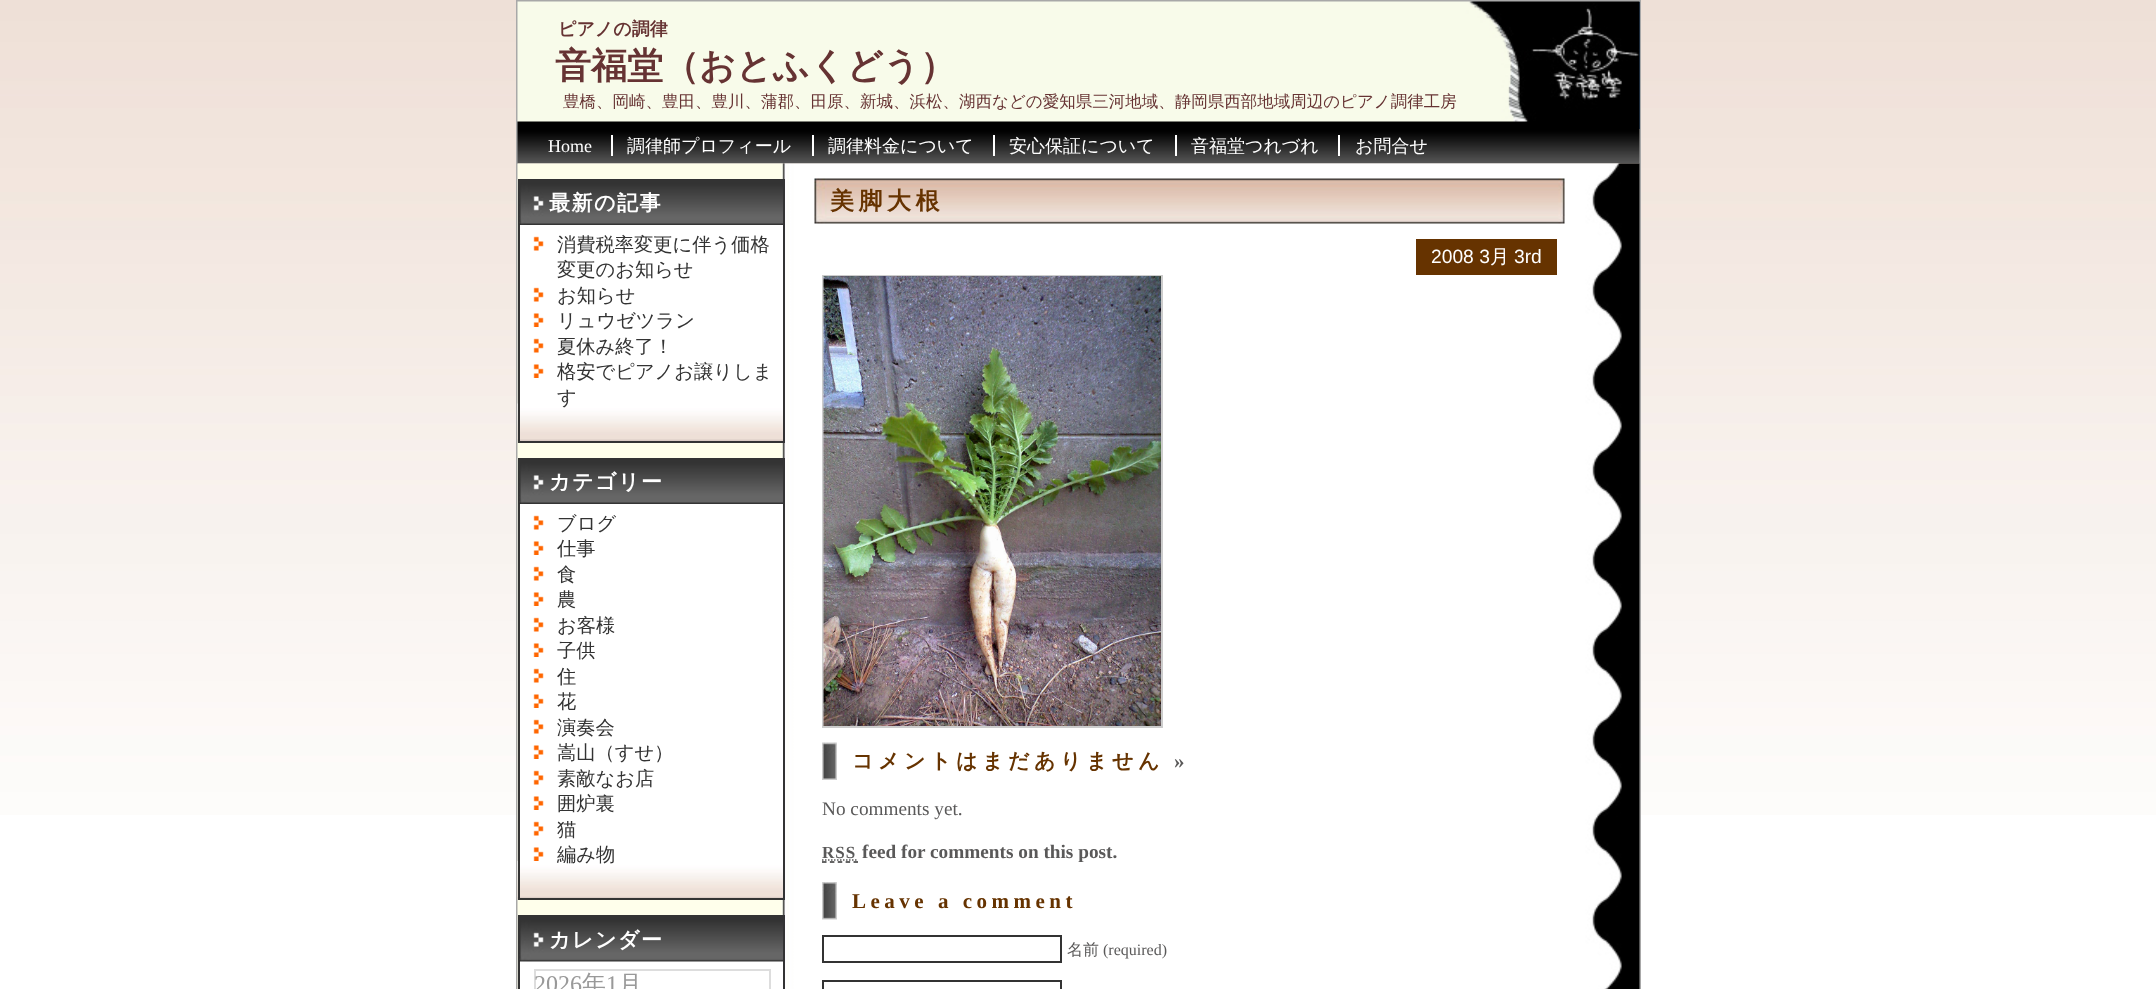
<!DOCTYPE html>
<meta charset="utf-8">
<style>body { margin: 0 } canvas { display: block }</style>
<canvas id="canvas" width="2156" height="989"></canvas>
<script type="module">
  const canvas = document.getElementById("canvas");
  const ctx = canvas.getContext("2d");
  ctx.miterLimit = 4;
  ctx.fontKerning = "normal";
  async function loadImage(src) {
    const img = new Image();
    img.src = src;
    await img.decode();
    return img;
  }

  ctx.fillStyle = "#ffffff";
  ctx.fillRect(0, 0, 2156, 989);
  ctx.drawImage(await loadImage("img1.png"), 0, 0, 2156, 815);
  ctx.strokeStyle = "#a8a8a8";
  ctx.lineWidth = 2;
  ctx.strokeRect(517, 1, 1123, 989);
  ctx.fillStyle = "#395574";
  ctx.fillRect(1639, 2, 1, 127);
  ctx.drawImage(await loadImage("img2.png"), 517, 1, 1123, 128);
  ctx.font = "bold 18px WenQuanYi Zen Hei";
  ctx.fillStyle = "#663333";
  ctx.fillText("ピアノの調律", 558, 35);
  ctx.font = "bold 36px WenQuanYi Zen Hei";
  ctx.fillText("音福堂（おとふくどう）", 555, 78);
  ctx.font = "500 16.5px WenQuanYi Zen Hei";
  ctx.fillText("豊橋、岡崎、豊田、豊川、蒲郡、田原、新城、浜松、湖西などの愛知県三河地域、静岡県西部地域周辺のピアノ調律工房", 563, 107);
  ctx.drawImage(await loadImage("img3.png"), 517, 129, 1123, 35);
  ctx.font = "18px Liberation Serif";
  ctx.fillStyle = "#ffffff";
  ctx.fillText("Home", 548, 152);
  ctx.font = "500 18px WenQuanYi Zen Hei";
  ctx.fillText("調律師プロフィール", 627, 152);
  ctx.fillRect(611, 135, 2, 21);
  ctx.fillText("調律料金について", 828, 152);
  ctx.fillRect(812, 135, 2, 21);
  ctx.fillText("安心保証について", 1009, 152);
  ctx.fillRect(993, 135, 2, 21);
  ctx.fillText("音福堂つれづれ", 1191, 152);
  ctx.fillRect(1175, 135, 2, 21);
  ctx.fillText("お問合せ", 1355, 152);
  ctx.fillRect(1338, 135, 2, 21);
  ctx.drawImage(await loadImage("img4.png"), 517, 163, 1123, 826);
  ctx.fillRect(520, 225, 263, 179);
  ctx.drawImage(await loadImage("img5.png"), 517, 403, 266, 38);
  ctx.strokeStyle = "#333333";
  ctx.strokeRect(519, 180, 265, 262);
  ctx.drawImage(await loadImage("img6.png"), 519, 181, 264, 44);
  ctx.letterSpacing = "1.5px";
  ctx.font = "bold 21px WenQuanYi Zen Hei";
  ctx.fillText("最新の記事", 549, 210);
  ctx.drawImage(await loadImage("img7.png"), 533, 236, 11, 15);
  ctx.letterSpacing = "0px";
  ctx.font = "500 19.25px WenQuanYi Zen Hei";
  ctx.fillStyle = "#333333";
  ctx.fillText("消費税率変更に伴う価格", 557, 251);
  ctx.fillText("変更のお知らせ", 557, 276);
  ctx.drawImage(await loadImage("img7.png"), 533, 287, 11, 15);
  ctx.fillText("お知らせ", 557, 302);
  ctx.drawImage(await loadImage("img8.png"), 533, 313, 11, 14);
  ctx.fillText("リュウゼツラン", 557, 327);
  ctx.drawImage(await loadImage("img7.png"), 533, 338, 11, 15);
  ctx.fillText("夏休み終了！", 557, 353);
  ctx.drawImage(await loadImage("img8.png"), 533, 364, 11, 14);
  ctx.fillText("格安でピアノお譲りしま", 557, 378);
  ctx.fillText("す", 557, 404);
  ctx.fillStyle = "#ffffff";
  ctx.fillRect(520, 504, 263, 357);
  ctx.drawImage(await loadImage("img9.png"), 517, 861, 266, 38);
  ctx.strokeRect(519, 459, 265, 440);
  ctx.drawImage(await loadImage("img6.png"), 519, 460, 264, 44);
  ctx.letterSpacing = "1.5px";
  ctx.font = "bold 21px WenQuanYi Zen Hei";
  ctx.fillText("カテゴリー", 549, 489);
  ctx.drawImage(await loadImage("img7.png"), 533, 515, 11, 15);
  ctx.letterSpacing = "0px";
  ctx.font = "500 19.25px WenQuanYi Zen Hei";
  ctx.fillStyle = "#333333";
  ctx.fillText("ブログ", 557, 530);
  ctx.drawImage(await loadImage("img8.png"), 533, 541, 11, 14);
  ctx.fillText("仕事", 557, 555);
  ctx.drawImage(await loadImage("img7.png"), 533, 566, 11, 15);
  ctx.fillText("食", 557, 581);
  ctx.drawImage(await loadImage("img8.png"), 533, 592, 11, 14);
  ctx.fillText("農", 557, 606);
  ctx.drawImage(await loadImage("img7.png"), 533, 617, 11, 15);
  ctx.fillText("お客様", 557, 632);
  ctx.drawImage(await loadImage("img8.png"), 533, 643, 11, 14);
  ctx.fillText("子供", 557, 657);
  ctx.drawImage(await loadImage("img7.png"), 533, 668, 11, 15);
  ctx.fillText("住", 557, 683);
  ctx.drawImage(await loadImage("img8.png"), 533, 694, 11, 14);
  ctx.fillText("花", 557, 708);
  ctx.drawImage(await loadImage("img7.png"), 533, 719, 11, 15);
  ctx.fillText("演奏会", 557, 734);
  ctx.drawImage(await loadImage("img8.png"), 533, 745, 11, 14);
  ctx.fillText("嵩山（すせ）", 557, 759);
  ctx.drawImage(await loadImage("img7.png"), 533, 770, 11, 15);
  ctx.fillText("素敵なお店", 557, 785);
  ctx.drawImage(await loadImage("img8.png"), 533, 796, 11, 14);
  ctx.fillText("囲炉裏", 557, 810);
  ctx.drawImage(await loadImage("img7.png"), 533, 821, 11, 15);
  ctx.fillText("猫", 557, 836);
  ctx.drawImage(await loadImage("img8.png"), 533, 847, 11, 14);
  ctx.fillText("編み物", 557, 861);
  ctx.fillStyle = "#ffffff";
  ctx.fillRect(520, 961, 263, 28);
  ctx.strokeRect(519, 916, 265, 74);
  ctx.drawImage(await loadImage("img10.png"), 519, 917, 264, 45);
  ctx.letterSpacing = "1.5px";
  ctx.font = "bold 21px WenQuanYi Zen Hei";
  ctx.fillText("カレンダー", 549, 947);
  ctx.strokeStyle = "#dddddd";
  ctx.strokeRect(535, 970, 235, 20);
  ctx.letterSpacing = "0px";
  ctx.font = "24px Liberation Serif";
  ctx.fillStyle = "#999999";
  ctx.fillText("2026", 534, 992);
  ctx.font = "500 24px WenQuanYi Zen Hei";
  ctx.fillText("年", 582, 992);
  ctx.font = "24px Liberation Serif";
  ctx.fillText("1", 606, 992);
  ctx.font = "500 24px WenQuanYi Zen Hei";
  ctx.fillText("月", 618, 992);
  ctx.drawImage(await loadImage("img11.png"), 814, 178, 751, 46);
  ctx.letterSpacing = "4.5px";
  ctx.font = "bold 24px WenQuanYi Zen Hei";
  ctx.fillStyle = "#663300";
  ctx.fillText("美脚大根", 830, 209);
  ctx.fillRect(1416, 239, 141, 36);
  ctx.letterSpacing = "0px";
  ctx.font = "19.25px Liberation Sans";
  ctx.fillStyle = "#ffffff";
  ctx.fillText("2008 3", 1431, 263);
  ctx.font = "500 19.25px WenQuanYi Zen Hei";
  ctx.fillText("月", 1490, 263);
  ctx.font = "19.25px Liberation Sans";
  ctx.fillText("3rd", 1514, 263);
  ctx.strokeStyle = "#cccccc";
  ctx.strokeRect(823, 276, 339, 451);
  ctx.drawImage(await loadImage("img12.png"), 823, 276, 338, 450);
  ctx.drawImage(await loadImage("img13.png"), 822, 742, 15, 38);
  ctx.letterSpacing = "4.5px";
  ctx.font = "bold 21px WenQuanYi Zen Hei";
  ctx.fillStyle = "#663300";
  ctx.fillText("コメントはまだありません", 852, 768);
  ctx.font = "bold 21px Liberation Serif";
  ctx.fillStyle = "#5a5959";
  ctx.fillText("»", 1174, 768);
  ctx.letterSpacing = "0px";
  ctx.font = "19.25px Liberation Serif";
  ctx.fillText("No comments yet.", 822, 815);
  ctx.letterSpacing = "1px";
  ctx.font = "bold 17px Liberation Serif";
  ctx.fillText("RSS", 822, 858);
  ctx.beginPath();
  ctx.moveTo(822, 862);
  ctx.lineTo(858, 862);
  ctx.strokeStyle = "#333333";
  ctx.lineWidth = 1.5;
  ctx.setLineDash([4.5, 3.38]);
  ctx.stroke();
  ctx.beginPath();
  ctx.moveTo(822, 860);
  ctx.lineTo(857.5, 860);
  ctx.strokeStyle = "#5a5959";
  ctx.setLineDash([1.5, 1.5]);
  ctx.stroke();
  ctx.letterSpacing = "0px";
  ctx.font = "bold 19.25px Liberation Serif";
  ctx.fillText("feed for comments on this post.", 862, 858);
  ctx.drawImage(await loadImage("img14.png"), 822, 882, 15, 38);
  ctx.letterSpacing = "4.5px";
  ctx.font = "bold 21px Liberation Serif";
  ctx.fillStyle = "#663300";
  ctx.fillText("Leave a comment", 852, 908);
  ctx.strokeStyle = "#333333";
  ctx.lineWidth = 2;
  ctx.setLineDash([]);
  ctx.strokeRect(823, 936, 238, 26);
  ctx.letterSpacing = "0px";
  ctx.font = "500 16px WenQuanYi Zen Hei";
  ctx.fillStyle = "#5a5959";
  ctx.fillText("名前", 1067, 955);
  ctx.font = "16px Liberation Serif";
  ctx.fillText("(required)", 1103, 955);
  ctx.strokeRect(823, 981, 238, 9);
</script>
